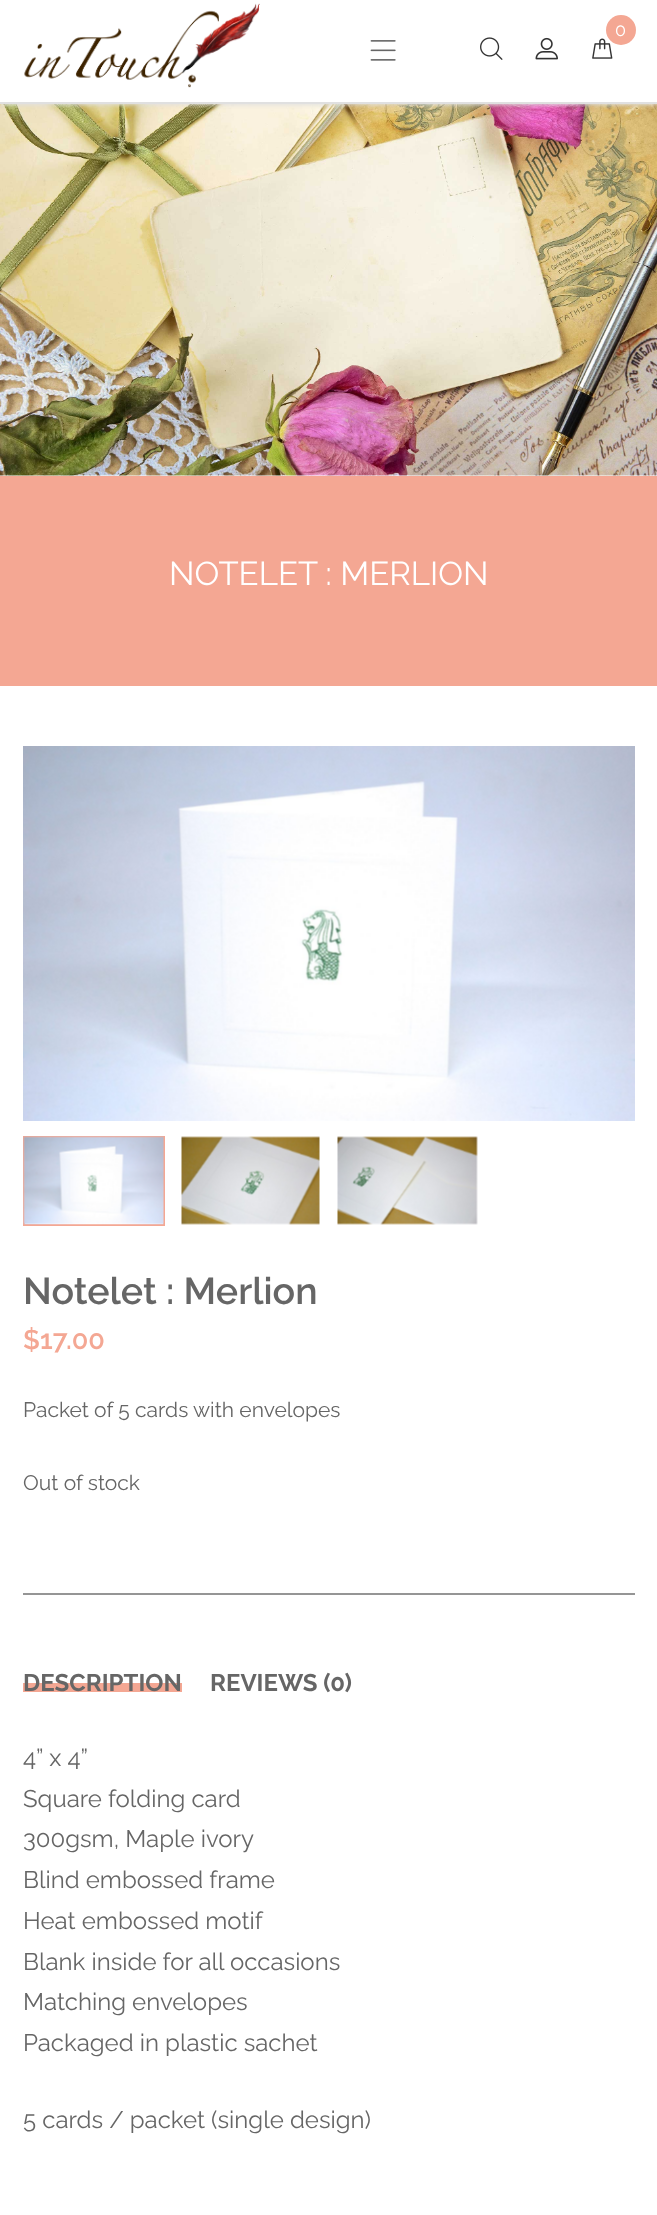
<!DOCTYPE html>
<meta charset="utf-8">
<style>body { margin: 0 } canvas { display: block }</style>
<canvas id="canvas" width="657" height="2215"></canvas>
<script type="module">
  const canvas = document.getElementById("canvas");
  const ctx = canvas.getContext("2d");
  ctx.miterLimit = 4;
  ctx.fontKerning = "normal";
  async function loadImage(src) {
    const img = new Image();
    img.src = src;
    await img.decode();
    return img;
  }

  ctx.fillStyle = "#ffffff";
  ctx.fillRect(0, 0, 657, 2215);
  ctx.drawImage(await loadImage("img6.png"), 0, 104, 657, 372);
  ctx.fillStyle = "#e0e0e0";
  ctx.filter = "blur(2px)";
  ctx.beginPath();
  ctx.rect(0, 2, 657, 103);
  ctx.fill();
  ctx.filter = "none";
  ctx.fillStyle = "#ffffff";
  ctx.fillRect(0, 0, 657, 102);
  ctx.fillStyle = "#e0e0e0";
  ctx.fillRect(0, 102, 657, 2);
  ctx.drawImage(await loadImage("img1.png"), 24, 3, 236, 85);
  ctx.drawImage(await loadImage("img2.png"), 592, 38, 21, 21);
  ctx.fillStyle = "#f4a793";
  ctx.beginPath();
  ctx.arc(621, 30, 15, 0, Math.PI * 2);
  ctx.fill();
  ctx.font = "18px Raleway";
  ctx.fillStyle = "#ffffff";
  ctx.fillText("0", 615, 36);
  ctx.drawImage(await loadImage("img3.png"), 480, 37, 23, 23);
  ctx.drawImage(await loadImage("img4.png"), 535, 37, 23, 23);
  ctx.drawImage(await loadImage("img5.png"), 370, 40, 26, 21);
  ctx.fillStyle = "#f4a793";
  ctx.fillRect(0, 476, 657, 210);
  ctx.font = "33px Raleway";
  ctx.fillStyle = "#ffffff";
  ctx.fillText("NOTELET : MERLION", 169, 585);
  ctx.fillStyle = "#959595";
  ctx.fillRect(23, 1593, 612, 2);
  ctx.drawImage(await loadImage("img7.png"), 23, 746, 612, 375);
  ctx.strokeStyle = "#f4a793";
  ctx.lineWidth = 2;
  ctx.strokeRect(24, 1137, 140, 88);
  ctx.drawImage(await loadImage("img8.png"), 23, 1136, 141, 89);
  ctx.drawImage(await loadImage("img9.png"), 181, 1136, 139, 89);
  ctx.drawImage(await loadImage("img10.png"), 337, 1136, 141, 89);
  ctx.font = "600 37.5px Raleway";
  ctx.fillStyle = "#666666";
  ctx.fillText("Notelet : Merlion", 23, 1304);
  ctx.font = "600 27px Raleway";
  ctx.fillStyle = "#f4a793";
  ctx.fillText("$17.00", 23, 1349);
  ctx.font = "21px Raleway";
  ctx.fillStyle = "#666666";
  ctx.fillText("Packet of 5 cards with envelopes", 23, 1417);
  ctx.fillText("Out of stock", 23, 1490);
  ctx.fillStyle = "#f4a793";
  ctx.fillRect(23, 1683, 159, 9);
  ctx.font = "bold 24px Raleway";
  ctx.fillStyle = "#666666";
  ctx.fillText("DESCRIPTION", 23, 1691);
  ctx.fillText("REVIEWS (0)", 210, 1691);
  ctx.font = "24px Raleway";
  ctx.fillText("4” x 4”", 23, 1766);
  ctx.fillText("Square folding card", 23, 1807);
  ctx.fillText("300gsm, Maple ivory", 23, 1847);
  ctx.fillText("Blind embossed frame", 23, 1888);
  ctx.fillText("Heat embossed motif", 23, 1929);
  ctx.fillText("Blank inside for all occasions", 23, 1970);
  ctx.fillText("Matching envelopes", 23, 2010);
  ctx.fillText("Packaged in plastic sachet", 23, 2051);
  ctx.fillText("5 cards / packet (single design)", 23, 2128);
</script>
